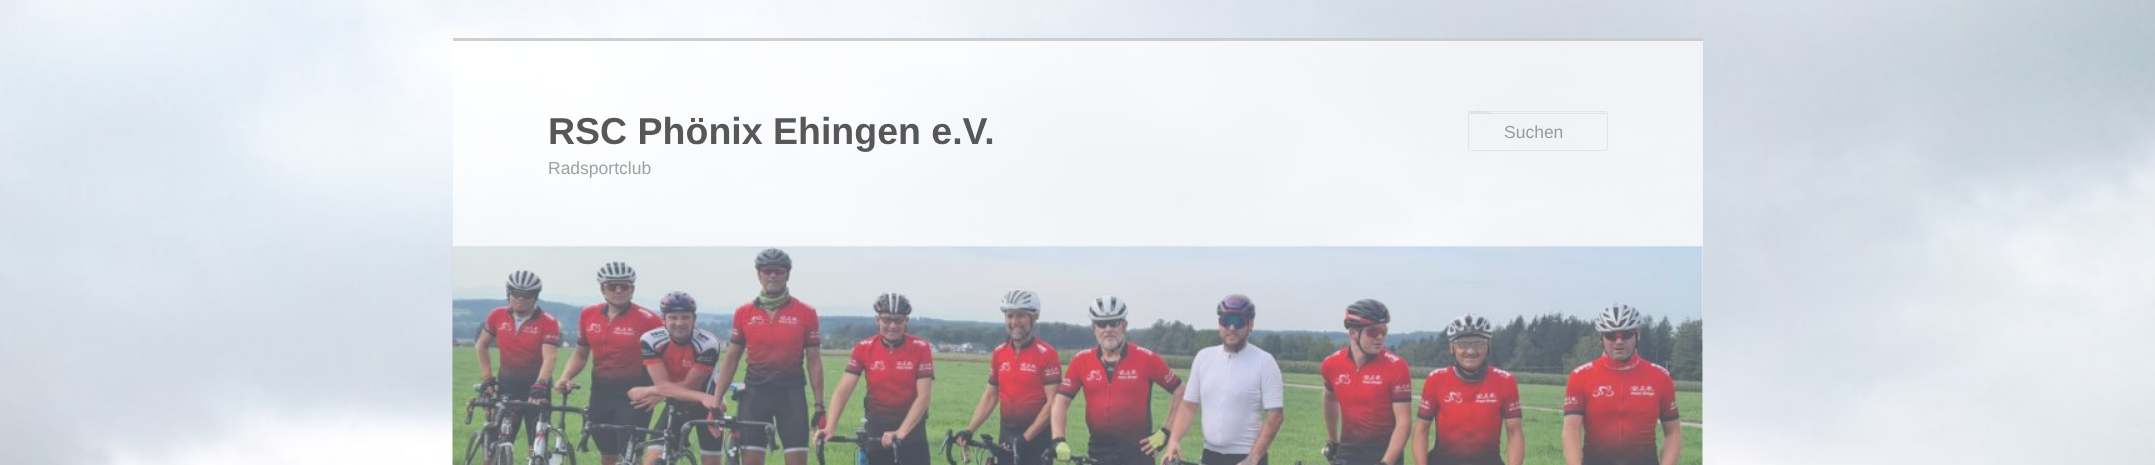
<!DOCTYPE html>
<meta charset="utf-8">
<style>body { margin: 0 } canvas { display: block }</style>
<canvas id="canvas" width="2155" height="465"></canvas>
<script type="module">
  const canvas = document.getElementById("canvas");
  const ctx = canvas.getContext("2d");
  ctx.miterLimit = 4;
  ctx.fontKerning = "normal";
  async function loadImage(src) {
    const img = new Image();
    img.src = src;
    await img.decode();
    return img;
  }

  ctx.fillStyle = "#ffffff";
  ctx.fillRect(0, 0, 2155, 465);
  ctx.drawImage(await loadImage("img1.png"), 0, 0, 2155, 465);
  ctx.fillStyle = "rgba(255, 255, 255, 0.7)";
  ctx.fillRect(453, 38, 1250, 427);
  ctx.fillStyle = "rgba(187, 187, 187, 0.7)";
  ctx.fillRect(453, 38, 1250, 3);
  ctx.font = "bold 37.5px Liberation Sans";
  ctx.fillStyle = "#575758";
  ctx.fillText("RSC Phönix Ehingen e.V.", 548, 144);
  ctx.font = "17.5px Liberation Sans";
  ctx.fillStyle = "#a0a1a1";
  ctx.fillText("Radsportclub", 548, 174);
  ctx.fillStyle = "#e0e2e5";
  ctx.beginPath();
  ctx.moveTo(1470, 114);
  ctx.lineTo(1605, 114);
  ctx.bezierCurveTo(1606, 114, 1606, 114, 1606, 115);
  ctx.lineTo(1606, 113);
  ctx.lineTo(1492, 113);
  ctx.bezierCurveTo(1492, 113, 1469, 107, 1469, 115);
  ctx.bezierCurveTo(1469, 114, 1469, 114, 1470, 114);
  ctx.closePath();
  ctx.fill();
  ctx.beginPath();
  ctx.roundRect(1468.5, 111.5, 139, 39, 2);
  ctx.strokeStyle = "rgba(221, 221, 221, 0.7)";
  ctx.stroke();
  ctx.fillStyle = "#9a9b9c";
  ctx.fillText("Suchen", 1504, 138);
  ctx.drawImage(await loadImage("img2.png"), 452, 246, 1251, 219);
</script>
